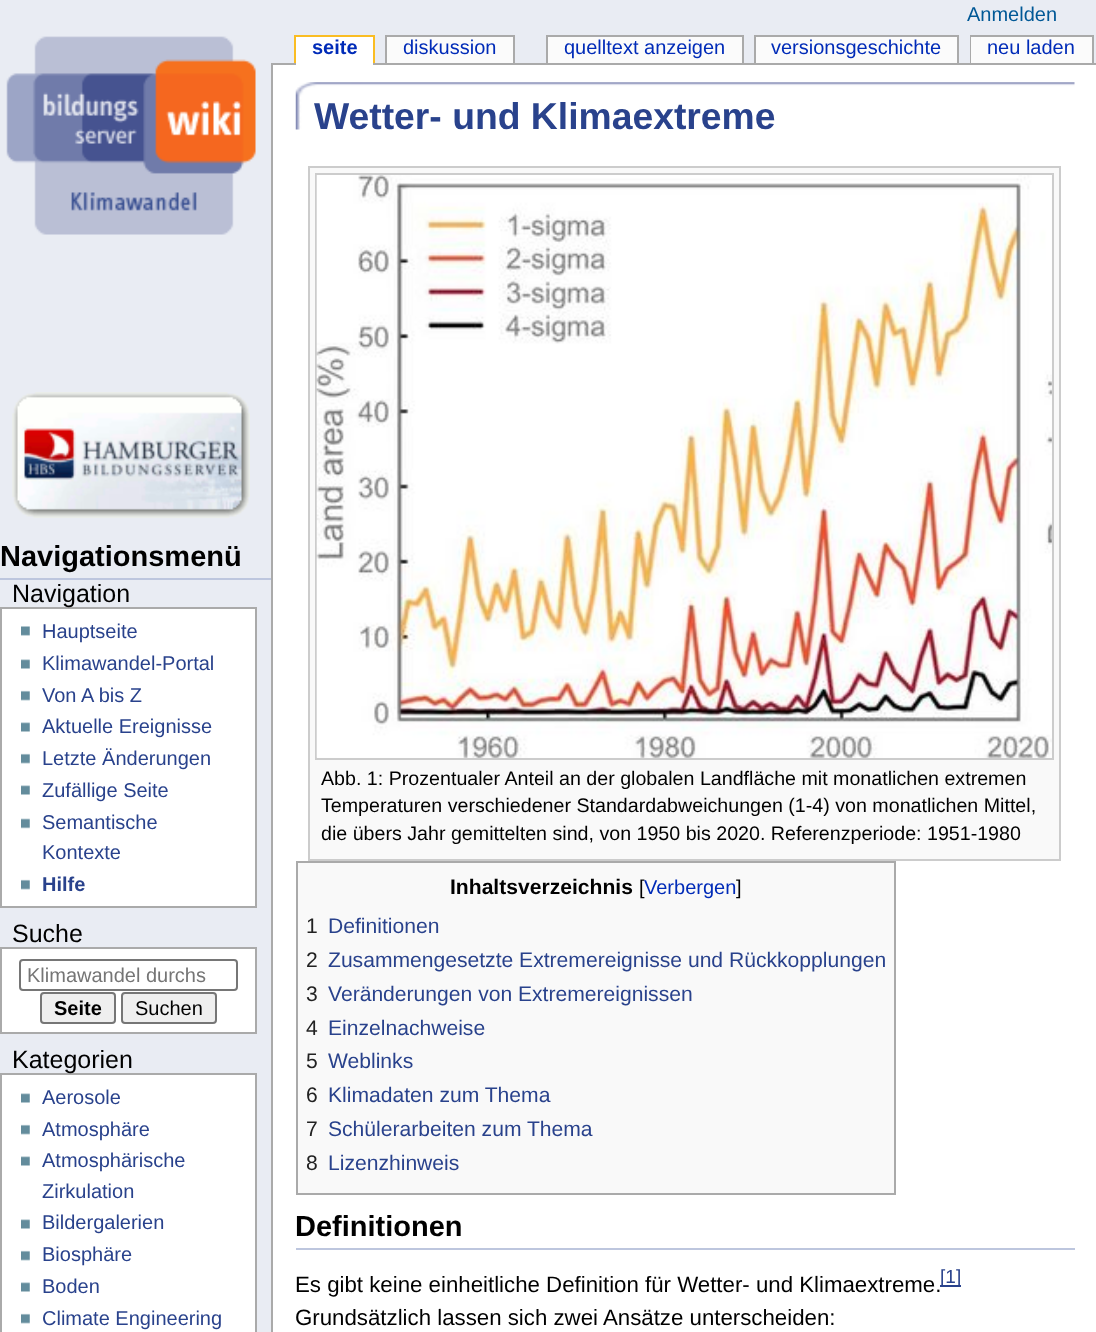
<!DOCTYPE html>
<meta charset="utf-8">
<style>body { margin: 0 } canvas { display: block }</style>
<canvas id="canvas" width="1096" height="1332"></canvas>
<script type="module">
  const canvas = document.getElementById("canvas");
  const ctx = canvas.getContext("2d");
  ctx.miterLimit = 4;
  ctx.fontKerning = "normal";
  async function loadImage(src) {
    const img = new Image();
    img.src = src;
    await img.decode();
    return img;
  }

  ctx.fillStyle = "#e9ecf3";
  ctx.fillRect(0, 0, 1096, 1332);
  ctx.font = "20px Liberation Sans";
  ctx.fillStyle = "#005896";
  ctx.fillText("Anmelden", 967, 21);
  ctx.drawImage(await loadImage("img1.png"), 6, 36, 250, 199);
  ctx.fillStyle = "#aaaaaa";
  ctx.fillRect(271, 63, 825, 2);
  ctx.fillStyle = "#ffffff";
  ctx.fillRect(296, 37, 77, 28);
  ctx.font = "bold 20px Liberation Sans";
  ctx.fillStyle = "#002bb8";
  ctx.fillText("seite", 312, 54);
  ctx.fillStyle = "#fabd23";
  ctx.fillRect(294, 35, 81, 2);
  ctx.fillRect(373, 35, 2, 28);
  ctx.fillRect(294, 35, 2, 28);
  ctx.fillStyle = "#fbfbfb";
  ctx.fillRect(387, 37, 126, 26);
  ctx.font = "20px Liberation Sans";
  ctx.fillStyle = "#002bb8";
  ctx.fillText("diskussion", 403, 54);
  ctx.fillStyle = "#aaaaaa";
  ctx.fillRect(385, 35, 130, 2);
  ctx.fillRect(513, 35, 2, 28);
  ctx.fillRect(385, 35, 2, 28);
  ctx.fillStyle = "#fbfbfb";
  ctx.fillRect(548, 37, 194, 26);
  ctx.fillStyle = "#002bb8";
  ctx.fillText("quelltext anzeigen", 564, 54);
  ctx.fillStyle = "#aaaaaa";
  ctx.fillRect(546, 35, 198, 2);
  ctx.fillRect(742, 35, 2, 28);
  ctx.fillRect(546, 35, 2, 28);
  ctx.fillStyle = "#fbfbfb";
  ctx.fillRect(756, 37, 201, 26);
  ctx.fillStyle = "#002bb8";
  ctx.fillText("versionsgeschichte", 771, 54);
  ctx.fillStyle = "#aaaaaa";
  ctx.fillRect(754, 35, 205, 2);
  ctx.fillRect(957, 35, 2, 28);
  ctx.fillRect(754, 35, 2, 28);
  ctx.fillRect(970, 35, 124, 2);
  ctx.fillRect(970, 35, 2, 28);
  ctx.fillStyle = "#fbfbfb";
  ctx.fillRect(971, 37, 121, 26);
  ctx.fillStyle = "#002bb8";
  ctx.fillText("neu laden", 987, 54);
  ctx.fillStyle = "#aaaaaa";
  ctx.fillRect(1092, 35, 2, 28);
  ctx.drawImage(await loadImage("img2.png"), 12, 392, 238, 126);
  ctx.fillStyle = "#bdc6de";
  ctx.fillRect(0, 578, 271, 2);
  ctx.font = "bold 29px Liberation Sans";
  ctx.fillStyle = "#000000";
  ctx.fillText("Navigationsmenü", 0, 566);
  ctx.fillStyle = "#ffffff";
  ctx.beginPath();
  ctx.rect(1, 608, 255, 299);
  ctx.fill();
  ctx.strokeStyle = "#aaaaaa";
  ctx.lineWidth = 2;
  ctx.stroke();
  ctx.font = "25px Liberation Sans";
  ctx.fillStyle = "#000000";
  ctx.fillText("Navigation", 12, 602);
  ctx.drawImage(await loadImage("img3.png"), 21, 626, 9, 10);
  ctx.font = "20px Liberation Sans";
  ctx.fillStyle = "#29428c";
  ctx.fillText("Hauptseite", 42, 638);
  ctx.drawImage(await loadImage("img4.png"), 21, 659, 9, 10);
  ctx.fillText("Klimawandel-Portal", 42, 670);
  ctx.drawImage(await loadImage("img5.png"), 21, 690, 9, 11);
  ctx.fillText("Von A bis Z", 42, 702);
  ctx.drawImage(await loadImage("img4.png"), 21, 722, 9, 10);
  ctx.fillText("Aktuelle Ereignisse", 42, 733);
  ctx.drawImage(await loadImage("img5.png"), 21, 753, 9, 11);
  ctx.fillText("Letzte Änderungen", 42, 765);
  ctx.drawImage(await loadImage("img4.png"), 21, 785, 9, 10);
  ctx.fillText("Zufällige Seite", 42, 797);
  ctx.drawImage(await loadImage("img6.png"), 21, 818, 9, 11);
  ctx.fillText("Semantische", 42, 829);
  ctx.fillText("Kontexte", 42, 859);
  ctx.drawImage(await loadImage("img5.png"), 21, 879, 9, 11);
  ctx.font = "bold 20px Liberation Sans";
  ctx.fillText("Hilfe", 42, 891);
  ctx.font = "25px Liberation Sans";
  ctx.fillStyle = "#000000";
  ctx.fillText("Suche", 12, 942);
  ctx.fillStyle = "#ffffff";
  ctx.beginPath();
  ctx.rect(1, 948, 255, 85);
  ctx.fill();
  ctx.stroke();
  ctx.beginPath();
  ctx.roundRect(20, 960, 217, 30, 3);
  ctx.strokeStyle = "#767676";
  ctx.stroke();
  ctx.font = "20px Liberation Sans";
  ctx.fillStyle = "#757575";
  ctx.fillText("Klimawandel durchs", 27, 982);
  ctx.fillStyle = "#efefef";
  ctx.beginPath();
  ctx.roundRect(41, 993, 74, 30, 3);
  ctx.fill();
  ctx.stroke();
  ctx.font = "bold 20px Liberation Sans";
  ctx.fillStyle = "#000000";
  ctx.fillText("Seite", 54, 1015);
  ctx.fillStyle = "#efefef";
  ctx.beginPath();
  ctx.roundRect(122, 993, 94, 30, 3);
  ctx.fill();
  ctx.stroke();
  ctx.font = "20px Liberation Sans";
  ctx.fillStyle = "#000000";
  ctx.fillText("Suchen", 135, 1015);
  ctx.fillStyle = "#ffffff";
  ctx.beginPath();
  ctx.rect(1, 1074, 255, 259);
  ctx.fill();
  ctx.strokeStyle = "#aaaaaa";
  ctx.stroke();
  ctx.font = "25px Liberation Sans";
  ctx.fillStyle = "#000000";
  ctx.fillText("Kategorien", 12, 1068);
  ctx.drawImage(await loadImage("img4.png"), 21, 1093, 9, 10);
  ctx.font = "20px Liberation Sans";
  ctx.fillStyle = "#29428c";
  ctx.fillText("Aerosole", 42, 1104);
  ctx.drawImage(await loadImage("img5.png"), 21, 1124, 9, 11);
  ctx.fillText("Atmosphäre", 42, 1136);
  ctx.drawImage(await loadImage("img4.png"), 21, 1156, 9, 10);
  ctx.fillText("Atmosphärische", 42, 1167);
  ctx.fillText("Zirkulation", 42, 1198);
  ctx.drawImage(await loadImage("img4.png"), 21, 1219, 9, 10);
  ctx.fillText("Bildergalerien", 42, 1229);
  ctx.drawImage(await loadImage("img5.png"), 21, 1250, 9, 11);
  ctx.fillText("Biosphäre", 42, 1261);
  ctx.drawImage(await loadImage("img4.png"), 21, 1282, 9, 10);
  ctx.fillText("Boden", 42, 1293);
  ctx.drawImage(await loadImage("img5.png"), 21, 1313, 9, 11);
  ctx.fillText("Climate Engineering", 42, 1325);
  ctx.fillStyle = "#ffffff";
  ctx.fillRect(273, 65, 823, 1267);
  ctx.fillStyle = "#aaaaaa";
  ctx.fillRect(271, 63, 2, 1269);
  ctx.drawImage(await loadImage("img7.png"), 295, 82, 780, 48);
  ctx.font = "bold 37.3px Liberation Sans";
  ctx.fillStyle = "#29428c";
  ctx.fillText("Wetter- und Klimaextreme", 314, 129);
  ctx.fillStyle = "#f9f9f9";
  ctx.fillRect(310, 168, 749, 691);
  ctx.fillStyle = "#cccccc";
  ctx.fillRect(308, 166, 753, 2);
  ctx.fillRect(308, 859, 753, 2);
  ctx.fillRect(1059, 166, 2, 695);
  ctx.fillRect(308, 166, 2, 695);
  ctx.strokeStyle = "#cccccc";
  ctx.strokeRect(316, 174, 737, 585);
  ctx.drawImage(await loadImage("img8.png"), 316, 175, 736, 583);
  ctx.font = "19.65px Liberation Sans";
  ctx.fillStyle = "#000000";
  ctx.fillText("Abb. 1: Prozentualer Anteil an der globalen Landfläche mit monatlichen extremen", 321, 785);
  ctx.fillText("Temperaturen verschiedener Standardabweichungen (1-4) von monatlichen Mittel,", 321, 812);
  ctx.fillText("die übers Jahr gemittelten sind, von 1950 bis 2020. Referenzperiode: 1951-1980", 321, 840);
  ctx.fillStyle = "#f9f9f9";
  ctx.beginPath();
  ctx.rect(297, 862, 598, 332);
  ctx.fill();
  ctx.strokeStyle = "#aaaaaa";
  ctx.stroke();
  ctx.font = "bold 21.1px Liberation Sans";
  ctx.fillStyle = "#000000";
  ctx.fillText("Inhaltsverzeichnis", 450, 894);
  ctx.font = "20px Liberation Sans";
  ctx.fillText("[", 639, 894);
  ctx.fillStyle = "#002bb8";
  ctx.fillText("Verbergen", 644, 894);
  ctx.fillStyle = "#000000";
  ctx.fillText("]", 736, 894);
  ctx.font = "21.1px Liberation Sans";
  ctx.fillStyle = "#222222";
  ctx.fillText("1", 306, 933);
  ctx.fillStyle = "#29428c";
  ctx.fillText("Definitionen", 328, 933);
  ctx.fillStyle = "#222222";
  ctx.fillText("2", 306, 967);
  ctx.fillStyle = "#29428c";
  ctx.fillText("Zusammengesetzte Extremereignisse und Rückkopplungen", 328, 967);
  ctx.fillStyle = "#222222";
  ctx.fillText("3", 306, 1001);
  ctx.fillStyle = "#29428c";
  ctx.fillText("Veränderungen von Extremereignissen", 328, 1001);
  ctx.fillStyle = "#222222";
  ctx.fillText("4", 306, 1035);
  ctx.fillStyle = "#29428c";
  ctx.fillText("Einzelnachweise", 328, 1035);
  ctx.fillStyle = "#222222";
  ctx.fillText("5", 306, 1068);
  ctx.fillStyle = "#29428c";
  ctx.fillText("Weblinks", 328, 1068);
  ctx.fillStyle = "#222222";
  ctx.fillText("6", 306, 1102);
  ctx.fillStyle = "#29428c";
  ctx.fillText("Klimadaten zum Thema", 328, 1102);
  ctx.fillStyle = "#222222";
  ctx.fillText("7", 306, 1136);
  ctx.fillStyle = "#29428c";
  ctx.fillText("Schülerarbeiten zum Thema", 328, 1136);
  ctx.fillStyle = "#222222";
  ctx.fillText("8", 306, 1170);
  ctx.fillStyle = "#29428c";
  ctx.fillText("Lizenzhinweis", 328, 1170);
  ctx.fillStyle = "#bdc6de";
  ctx.fillRect(296, 1248, 779, 2);
  ctx.font = "bold 29px Liberation Sans";
  ctx.fillStyle = "#000000";
  ctx.fillText("Definitionen", 295, 1236);
  ctx.font = "22.25px Liberation Sans";
  ctx.fillText("Es gibt keine einheitliche Definition für Wetter- und Klimaextreme.", 295, 1292);
  ctx.fillStyle = "#29428c";
  ctx.fillRect(940, 1285, 5, 2);
  ctx.font = "19px Liberation Sans";
  ctx.fillText("[1", 940, 1283);
  ctx.fillRect(945, 1285, 16, 2);
  ctx.fillText("]", 956, 1283);
  ctx.font = "22.25px Liberation Sans";
  ctx.fillStyle = "#000000";
  ctx.fillText("Grundsätzlich lassen sich zwei Ansätze unterscheiden:", 295, 1325);
</script>
